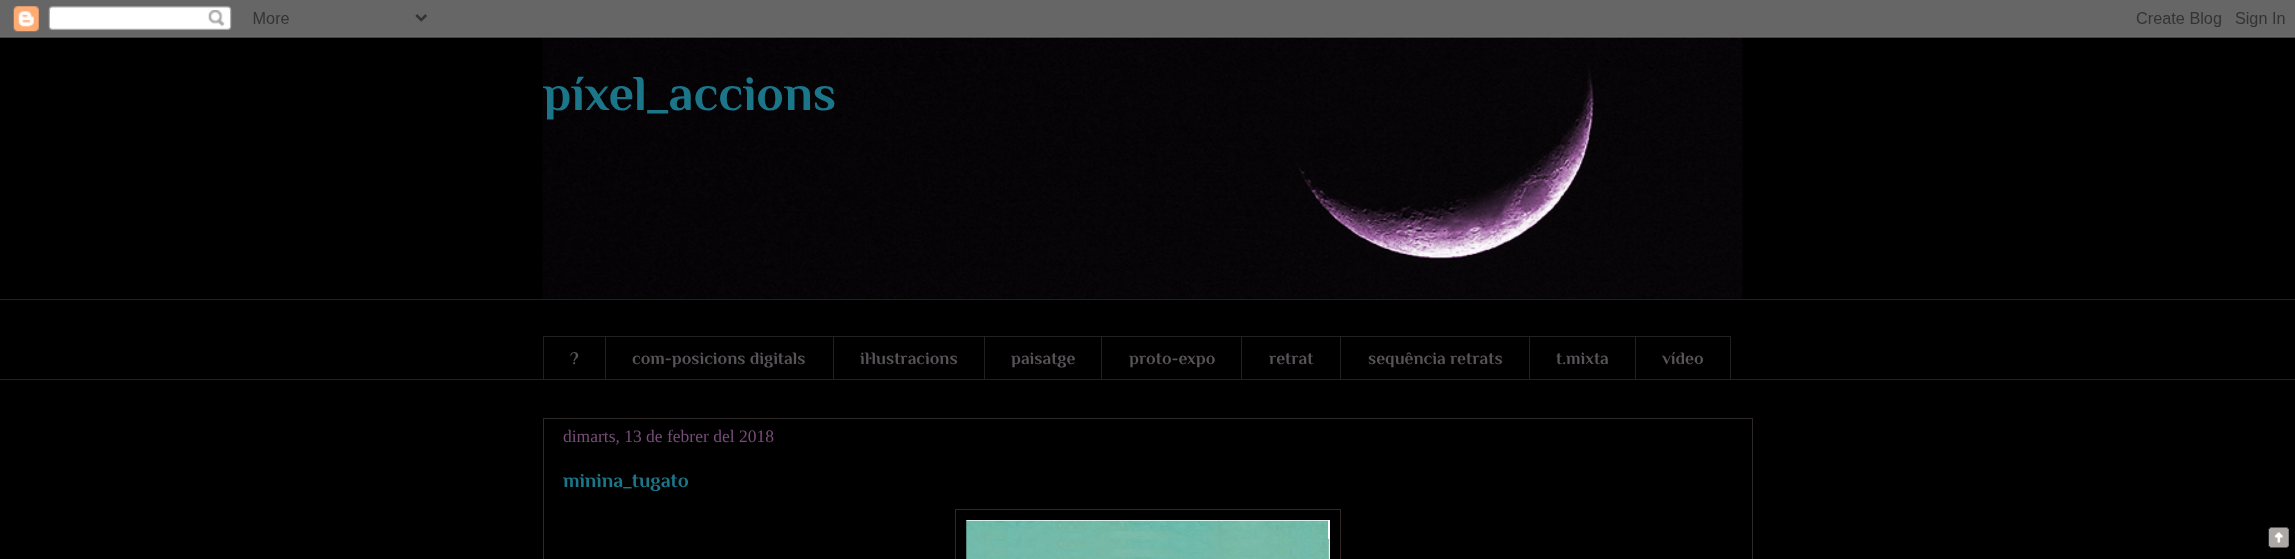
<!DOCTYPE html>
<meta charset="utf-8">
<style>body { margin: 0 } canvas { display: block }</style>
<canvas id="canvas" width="2295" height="559"></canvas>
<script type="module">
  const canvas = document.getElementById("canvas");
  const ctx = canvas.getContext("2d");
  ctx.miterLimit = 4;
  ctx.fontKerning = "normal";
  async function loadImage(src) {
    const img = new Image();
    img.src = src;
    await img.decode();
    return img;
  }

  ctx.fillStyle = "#000000";
  ctx.fillRect(0, 0, 2295, 559);
  ctx.drawImage(await loadImage("img2.png"), 542, 37, 1201, 262);
  ctx.drawImage(await loadImage("img1.png"), 0, 0, 2295, 38);
  ctx.font = "bold 50px Philosopher";
  ctx.fillStyle = "#1c768a";
  ctx.fillText("píxel_accions", 543, 110);
  ctx.fillStyle = "#222020";
  ctx.fillRect(0, 299, 2295, 1);
  ctx.fillRect(543, 336, 1092, 1);
  ctx.fillRect(543, 336, 1, 44);
  ctx.font = "bold 17.5px Philosopher";
  ctx.fillStyle = "#575357";
  ctx.fillText("?", 570, 364);
  ctx.fillStyle = "#222020";
  ctx.fillRect(605, 336, 1, 44);
  ctx.fillStyle = "#575357";
  ctx.fillText("com-posicions digitals", 632, 364);
  ctx.fillStyle = "#222020";
  ctx.fillRect(833, 336, 1, 44);
  ctx.fillStyle = "#575357";
  ctx.fillText("il·lustracions", 860, 364);
  ctx.fillStyle = "#222020";
  ctx.fillRect(984, 336, 1, 44);
  ctx.fillStyle = "#575357";
  ctx.fillText("paisatge", 1011, 364);
  ctx.fillStyle = "#222020";
  ctx.fillRect(1101, 336, 1, 44);
  ctx.fillStyle = "#575357";
  ctx.fillText("proto-expo", 1129, 364);
  ctx.fillStyle = "#222020";
  ctx.fillRect(1241, 336, 1, 44);
  ctx.fillStyle = "#575357";
  ctx.fillText("retrat", 1269, 364);
  ctx.fillStyle = "#222020";
  ctx.fillRect(1340, 336, 1, 44);
  ctx.fillStyle = "#575357";
  ctx.fillText("sequência retrats", 1368, 364);
  ctx.fillStyle = "#222020";
  ctx.fillRect(1529, 336, 1, 44);
  ctx.fillStyle = "#575357";
  ctx.fillText("t.mixta", 1556, 364);
  ctx.strokeStyle = "#222020";
  ctx.strokeRect(1635.5, 336.5, 95, 43);
  ctx.fillText("vídeo", 1662, 364);
  ctx.fillStyle = "#222020";
  ctx.fillRect(0, 379, 2295, 1);
  ctx.strokeStyle = "#2e2929";
  ctx.strokeRect(543.5, 418.5, 1209, 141);
  ctx.font = "17.5px Liberation Serif";
  ctx.fillStyle = "#794c79";
  ctx.fillText("dimarts, 13 de febrer del 2018", 563, 442);
  ctx.font = "bold 20px Philosopher";
  ctx.fillStyle = "#1c768a";
  ctx.fillText("minina_tugato", 563, 487);
  ctx.strokeStyle = "#302727";
  ctx.strokeRect(955.5, 509.5, 385, 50);
  ctx.drawImage(await loadImage("img3.png"), 966, 520, 364, 39);
  ctx.drawImage(await loadImage("img4.png"), 2268, 527, 21, 21);
</script>
